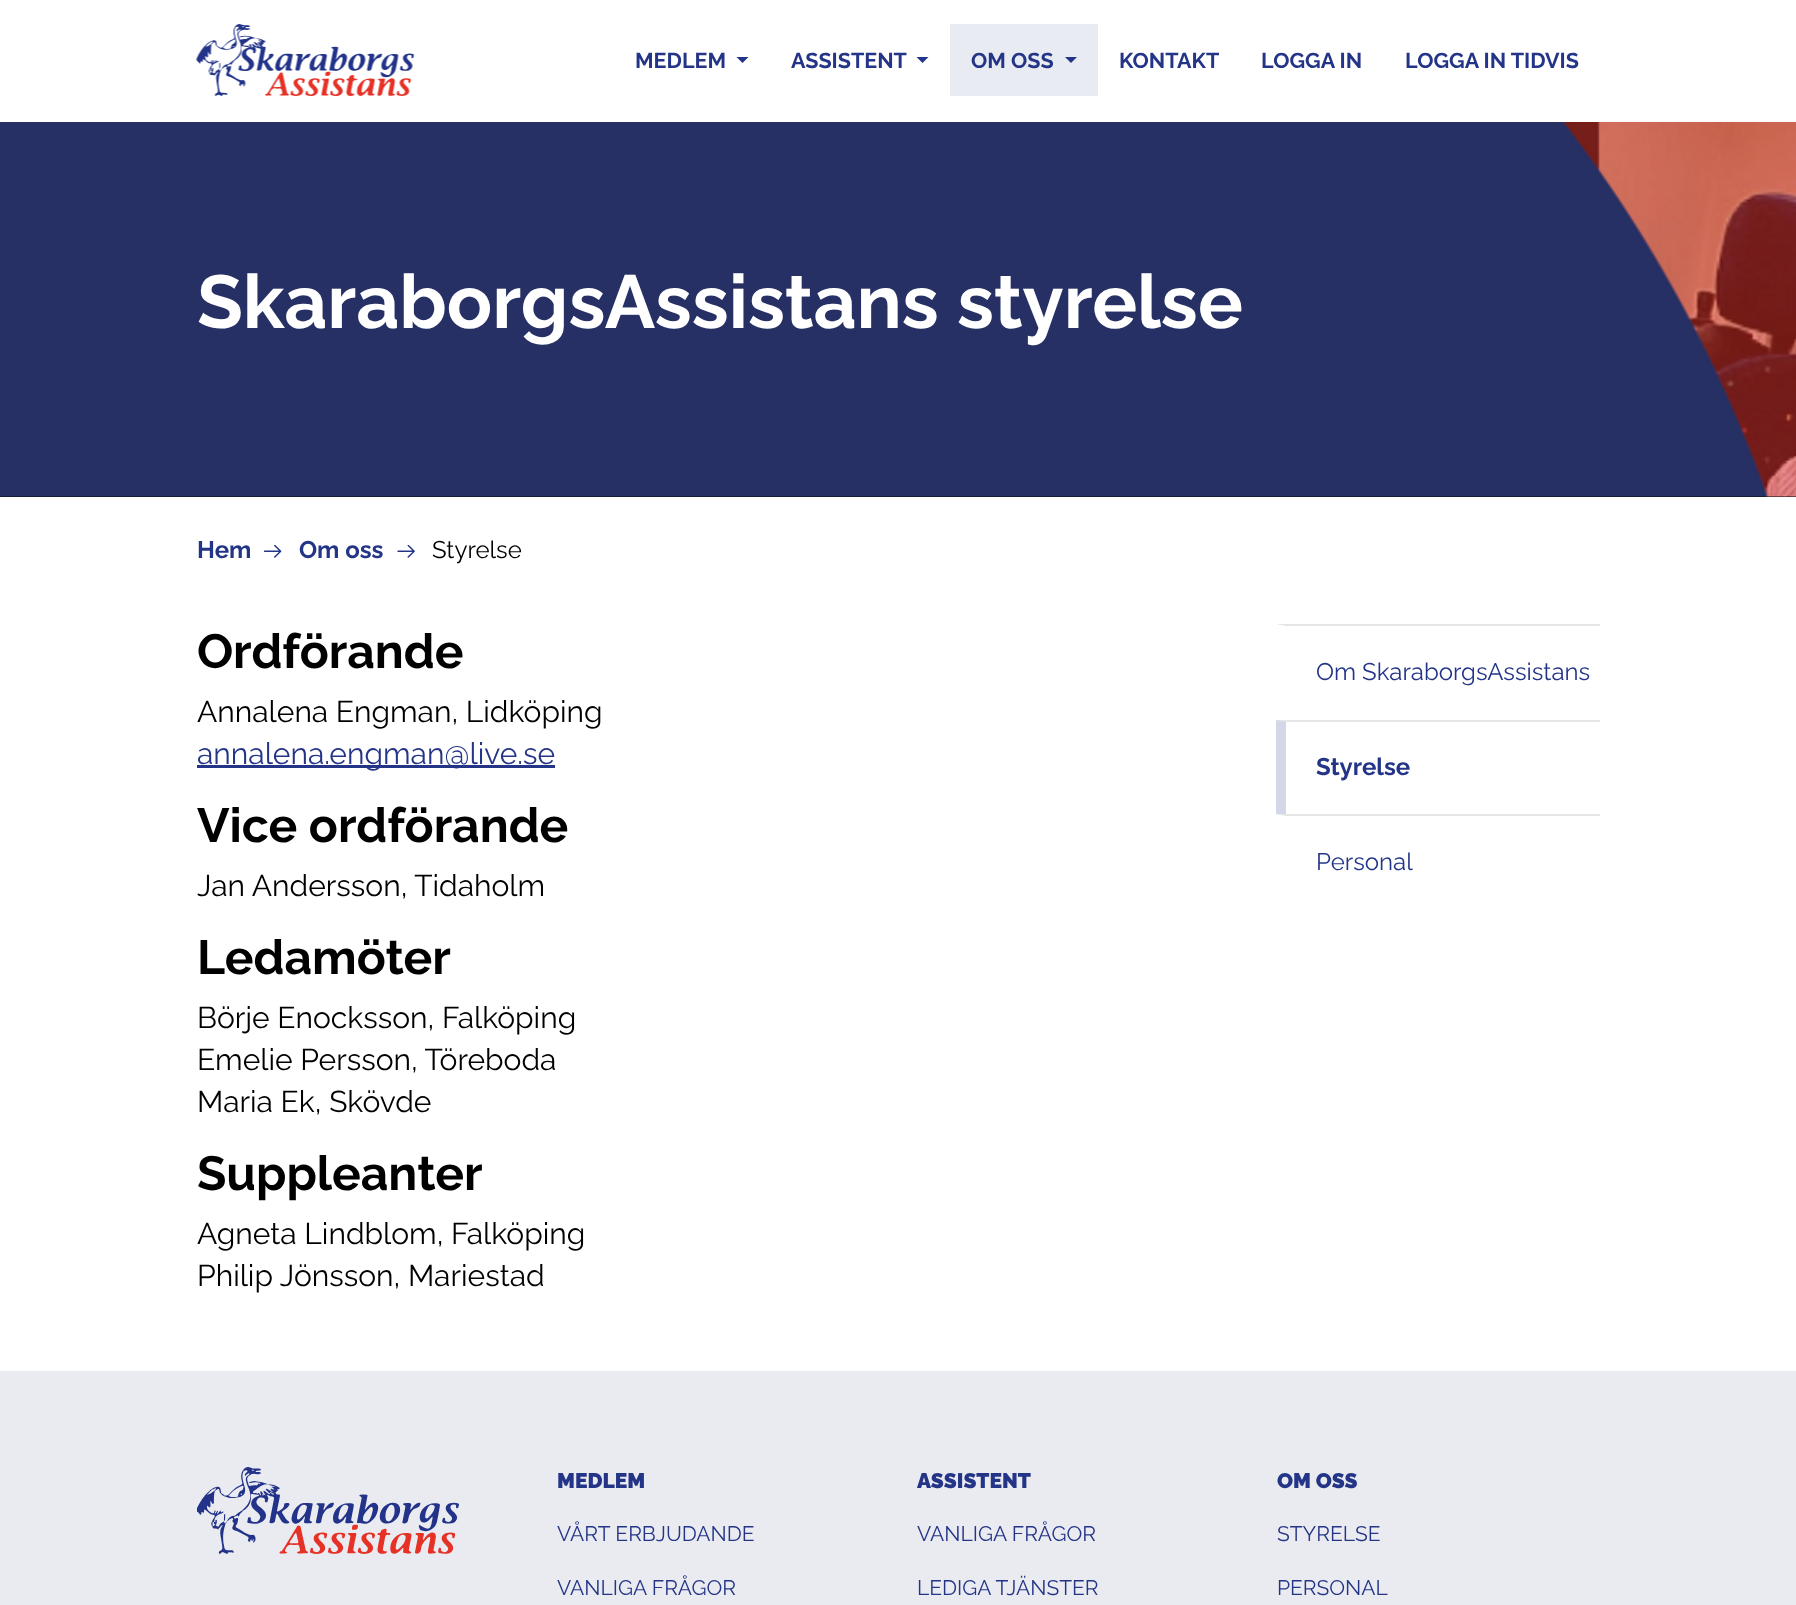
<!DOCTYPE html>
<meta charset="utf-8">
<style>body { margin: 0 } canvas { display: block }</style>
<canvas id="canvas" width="1796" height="1605"></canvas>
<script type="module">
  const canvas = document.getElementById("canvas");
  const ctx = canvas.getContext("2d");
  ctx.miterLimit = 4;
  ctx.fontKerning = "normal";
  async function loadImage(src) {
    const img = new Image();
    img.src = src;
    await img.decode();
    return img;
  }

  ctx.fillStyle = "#ffffff";
  ctx.fillRect(0, 0, 1796, 1605);
  ctx.drawImage(await loadImage("img1.png"), 196, 24, 219, 72);
  ctx.font = "bold 21.5px Raleway";
  ctx.fillStyle = "#243588";
  ctx.fillText("MEDLEM", 635, 68);
  ctx.fillStyle = "#243589";
  ctx.beginPath();
  ctx.moveTo(736.5, 57);
  ctx.lineTo(748.5, 57);
  ctx.lineTo(742.5, 63);
  ctx.closePath();
  ctx.fill();
  ctx.fillStyle = "#243588";
  ctx.fillText("ASSISTENT", 791, 68);
  ctx.fillStyle = "#243589";
  ctx.beginPath();
  ctx.moveTo(916.5, 57);
  ctx.lineTo(928.5, 57);
  ctx.lineTo(922.5, 63);
  ctx.closePath();
  ctx.fill();
  ctx.fillStyle = "#e9ebf3";
  ctx.fillRect(950, 24, 148, 72);
  ctx.fillStyle = "#243588";
  ctx.fillText("OM OSS", 971, 68);
  ctx.fillStyle = "#243589";
  ctx.beginPath();
  ctx.moveTo(1065, 57);
  ctx.lineTo(1077, 57);
  ctx.lineTo(1071, 63);
  ctx.closePath();
  ctx.fill();
  ctx.fillStyle = "#243588";
  ctx.fillText("KONTAKT", 1119, 68);
  ctx.fillText("LOGGA IN", 1261, 68);
  ctx.fillText("LOGGA IN TIDVIS", 1405, 68);
  ctx.fillStyle = "#070808";
  ctx.fillRect(0, 122, 1796, 375);
  ctx.drawImage(await loadImage("img2.png"), 0, 122, 1796, 375);
  ctx.font = "bold 75px Raleway";
  ctx.fillStyle = "#ffffff";
  ctx.fillText("SkaraborgsAssistans styrelse", 197, 328);
  ctx.font = "bold 24px Raleway";
  ctx.fillStyle = "#243588";
  ctx.fillText("Hem", 197, 558);
  ctx.drawImage(await loadImage("img3.png"), 264, 545, 18, 13);
  ctx.fillText("Om oss", 299, 558);
  ctx.drawImage(await loadImage("img4.png"), 397, 545, 18, 13);
  ctx.font = "24px Raleway";
  ctx.fillStyle = "#000000";
  ctx.fillText("Styrelse", 432, 558);
  ctx.font = "bold 48px Raleway";
  ctx.fillText("Ordförande", 197, 668);
  ctx.font = "30px Raleway";
  ctx.fillText("Annalena Engman, Lidköping", 197, 722);
  ctx.fillStyle = "#243588";
  ctx.fillRect(197, 765, 358, 3);
  ctx.fillText("annalena.engman@live.se", 197, 764);
  ctx.font = "bold 48px Raleway";
  ctx.fillStyle = "#000000";
  ctx.fillText("Vice ordförande", 197, 842);
  ctx.font = "30px Raleway";
  ctx.fillText("Jan Andersson, Tidaholm", 197, 896);
  ctx.font = "bold 48px Raleway";
  ctx.fillText("Ledamöter", 197, 974);
  ctx.font = "30px Raleway";
  ctx.fillText("Börje Enocksson, Falköping", 197, 1028);
  ctx.fillText("Emelie Persson, Töreboda", 197, 1070);
  ctx.fillText("Maria Ek, Skövde", 197, 1112);
  ctx.font = "bold 48px Raleway";
  ctx.fillText("Suppleanter", 197, 1190);
  ctx.font = "30px Raleway";
  ctx.fillText("Agneta Lindblom, Falköping", 197, 1244);
  ctx.fillText("Philip Jönsson, Mariestad", 197, 1286);
  ctx.fillStyle = "#e6e6e6";
  ctx.beginPath();
  ctx.moveTo(1276, 624);
  ctx.lineTo(1600, 624);
  ctx.lineTo(1600, 626);
  ctx.lineTo(1286, 626);
  ctx.closePath();
  ctx.fill();
  ctx.font = "24px Raleway";
  ctx.fillStyle = "#243588";
  ctx.fillText("Om SkaraborgsAssistans", 1316, 680);
  ctx.fillStyle = "#e6e6e6";
  ctx.beginPath();
  ctx.moveTo(1276, 720);
  ctx.lineTo(1600, 720);
  ctx.lineTo(1600, 722);
  ctx.lineTo(1286, 722);
  ctx.closePath();
  ctx.fill();
  ctx.fillStyle = "rgba(36, 53, 137, 0.2)";
  ctx.beginPath();
  ctx.moveTo(1276, 814);
  ctx.lineTo(1276, 720);
  ctx.lineTo(1286, 722);
  ctx.lineTo(1286, 814);
  ctx.closePath();
  ctx.fill();
  ctx.font = "bold 24px Raleway";
  ctx.fillStyle = "#243588";
  ctx.fillText("Styrelse", 1316, 775);
  ctx.fillStyle = "#e6e6e6";
  ctx.beginPath();
  ctx.moveTo(1276, 814);
  ctx.lineTo(1600, 814);
  ctx.lineTo(1600, 816);
  ctx.lineTo(1286, 816);
  ctx.closePath();
  ctx.fill();
  ctx.font = "24px Raleway";
  ctx.fillStyle = "#243588";
  ctx.fillText("Personal", 1316, 870);
  ctx.fillStyle = "#eaebf0";
  ctx.fillRect(0, 1371, 1796, 234);
  ctx.drawImage(await loadImage("img5.png"), 197, 1467, 262, 87);
  ctx.font = "900 21px Raleway";
  ctx.fillStyle = "#243588";
  ctx.fillText("MEDLEM", 557, 1488);
  ctx.font = "21px Raleway";
  ctx.fillText("VÅRT ERBJUDANDE", 557, 1541);
  ctx.fillText("VANLIGA FRÅGOR", 557, 1595);
  ctx.font = "900 21px Raleway";
  ctx.fillText("ASSISTENT", 917, 1488);
  ctx.font = "21px Raleway";
  ctx.fillText("VANLIGA FRÅGOR", 917, 1541);
  ctx.fillText("LEDIGA TJÄNSTER", 917, 1595);
  ctx.font = "900 21px Raleway";
  ctx.fillText("OM OSS", 1277, 1488);
  ctx.font = "21px Raleway";
  ctx.fillText("STYRELSE", 1277, 1541);
  ctx.fillText("PERSONAL", 1277, 1595);
</script>
